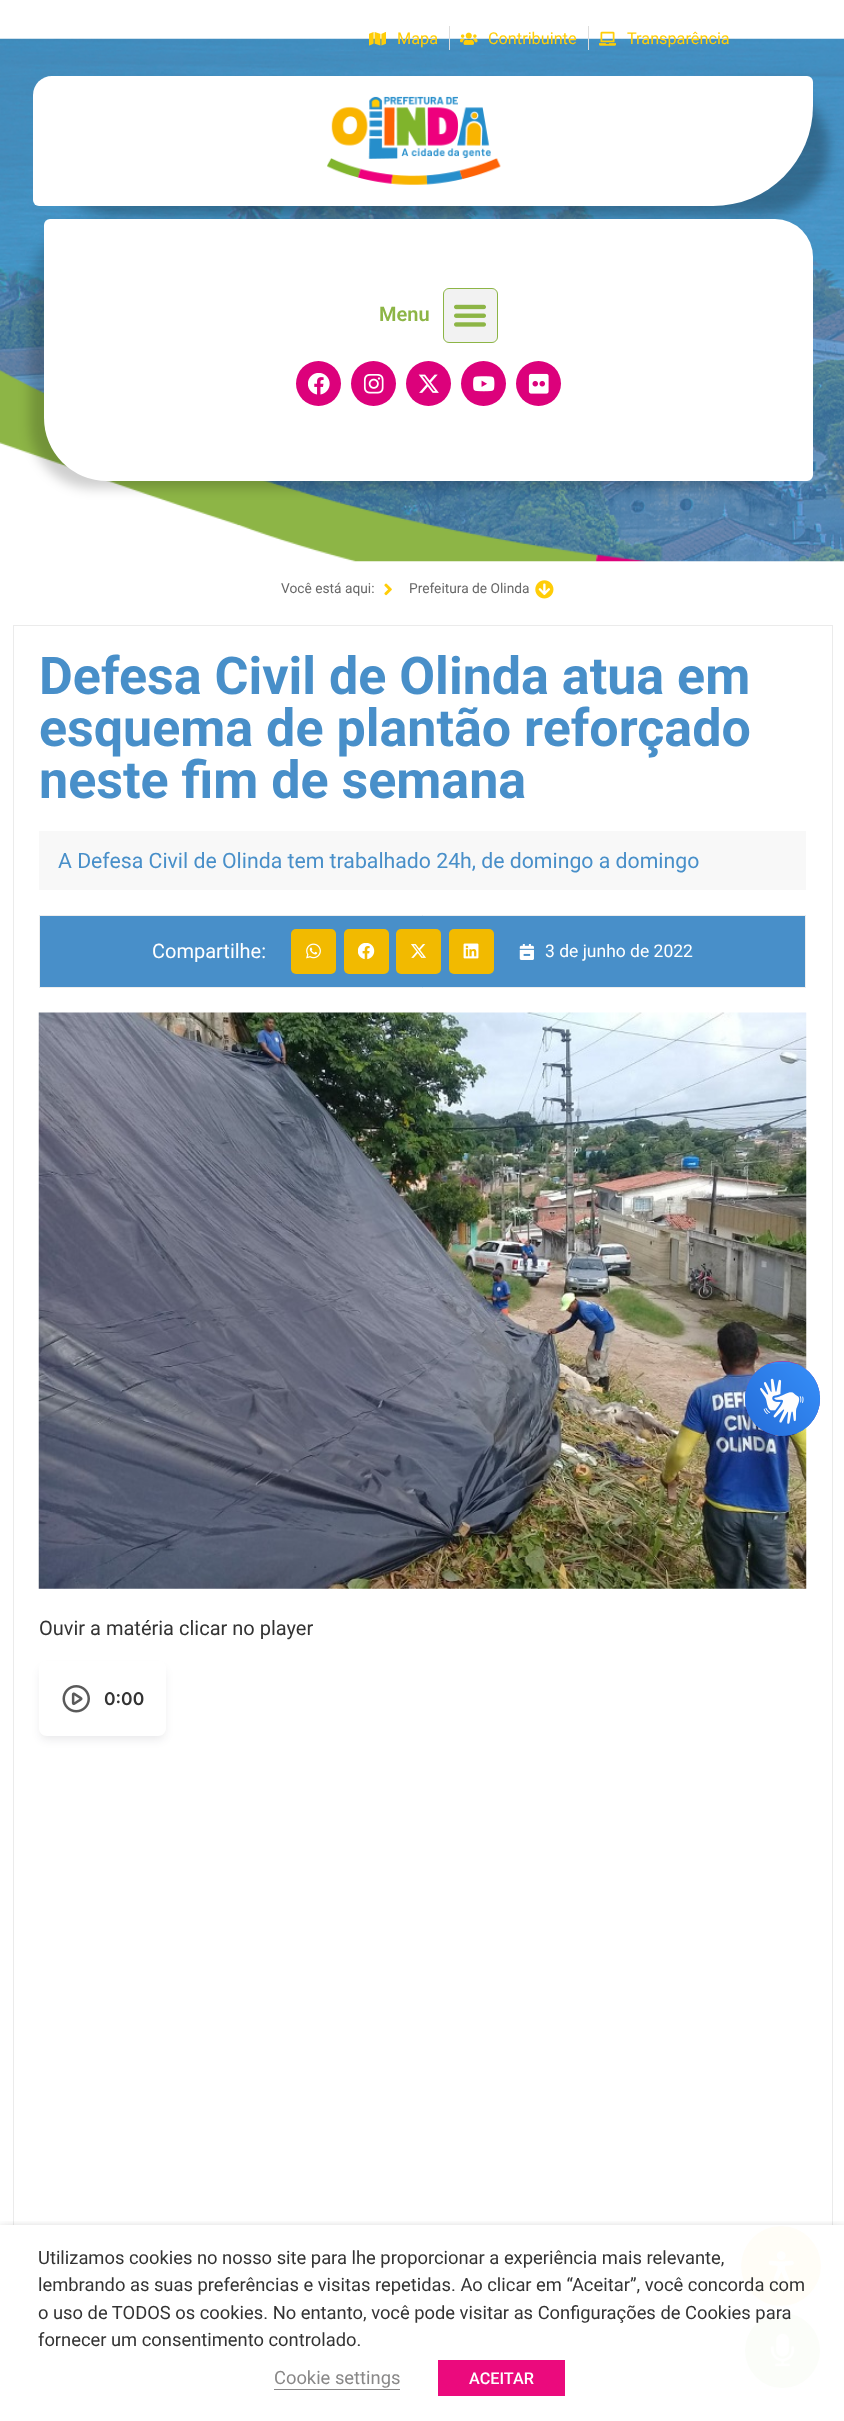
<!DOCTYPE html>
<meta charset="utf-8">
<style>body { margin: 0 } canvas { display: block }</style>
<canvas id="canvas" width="844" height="2421"></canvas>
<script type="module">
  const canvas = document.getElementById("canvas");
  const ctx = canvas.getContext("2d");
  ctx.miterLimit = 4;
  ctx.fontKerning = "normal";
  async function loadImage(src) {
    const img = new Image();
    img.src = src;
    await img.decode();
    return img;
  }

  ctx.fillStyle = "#ffffff";
  ctx.fillRect(0, 0, 844, 2421);
  ctx.drawImage(await loadImage("img11.png"), 0, 38, 844, 524);
  ctx.drawImage(await loadImage("img1.png"), 369, 32, 17, 14);
  ctx.font = "16.25px Roboto";
  ctx.fillStyle = "#ffcd08";
  ctx.fillText("Mapa", 397, 44);
  ctx.fillStyle = "#dddddd";
  ctx.fillRect(449, 26, 1, 24);
  ctx.drawImage(await loadImage("img2.png"), 460, 32, 18, 13);
  ctx.fillStyle = "#ffcd08";
  ctx.fillText("Contribuinte", 488, 44);
  ctx.fillStyle = "#dddddd";
  ctx.fillRect(588, 26, 1, 24);
  ctx.drawImage(await loadImage("img3.png"), 599, 31, 17, 15);
  ctx.fillStyle = "#ffcd08";
  ctx.fillText("Transparência", 627, 44);
  ctx.fillStyle = "rgba(0, 0, 0, 0.26)";
  ctx.filter = "blur(6px)";
  ctx.beginPath();
  ctx.roundRect(49, 85, 780, 130, 100);
  ctx.fill();
  ctx.filter = "none";
  ctx.fillStyle = "#ffffff";
  ctx.beginPath();
  ctx.roundRect(33, 76, 780, 130, [19, 6, 100, 6]);
  ctx.fill();
  ctx.drawImage(await loadImage("img4.png"), 327, 96, 174, 89);
  ctx.fillStyle = "rgba(0, 0, 0, 0.19)";
  ctx.filter = "blur(6px)";
  ctx.beginPath();
  ctx.roundRect(30, 225, 769, 263, 63);
  ctx.fill();
  ctx.filter = "none";
  ctx.fillStyle = "#ffffff";
  ctx.beginPath();
  ctx.roundRect(44, 219, 769, 262, [6, 38, 6, 63]);
  ctx.fill();
  ctx.font = "600 20px Roboto";
  ctx.fillStyle = "#8db546";
  ctx.fillText("Menu", 379, 321);
  ctx.fillStyle = "#f2f2f2";
  ctx.beginPath();
  ctx.roundRect(443.5, 288.5, 54, 54, 5.5);
  ctx.fill();
  ctx.strokeStyle = "#8db546";
  ctx.stroke();
  ctx.drawImage(await loadImage("img5.png"), 454, 304, 32, 23);
  ctx.fillStyle = "#dc017b";
  ctx.beginPath();
  ctx.arc(318.5, 383.5, 22.5, 0, Math.PI * 2);
  ctx.fill();
  ctx.drawImage(await loadImage("img6.png"), 308, 373, 22, 22);
  ctx.beginPath();
  ctx.arc(373.5, 383.5, 22.5, 0, Math.PI * 2);
  ctx.fill();
  ctx.drawImage(await loadImage("img7.png"), 363, 374, 21, 20);
  ctx.beginPath();
  ctx.arc(428.5, 383.5, 22.5, 0, Math.PI * 2);
  ctx.fill();
  ctx.drawImage(await loadImage("img8.png"), 418, 374, 21, 19);
  ctx.beginPath();
  ctx.arc(483.5, 383.5, 22.5, 0, Math.PI * 2);
  ctx.fill();
  ctx.drawImage(await loadImage("img9.png"), 473, 376, 22, 16);
  ctx.beginPath();
  ctx.arc(538.5, 383.5, 22.5, 0, Math.PI * 2);
  ctx.fill();
  ctx.drawImage(await loadImage("img10.png"), 528, 373, 21, 21);
  ctx.font = "13.75px Roboto";
  ctx.fillStyle = "#686868";
  ctx.fillText("Você está aqui:", 281, 593);
  ctx.drawImage(await loadImage("img12.png"), 384, 583, 8, 13);
  ctx.fillText("Prefeitura de Olinda", 409, 593);
  ctx.drawImage(await loadImage("img13.png"), 535, 580, 19, 19);
  ctx.strokeStyle = "#ebebeb";
  ctx.strokeRect(13.5, 625.5, 819, 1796);
  ctx.font = "bold 52px Roboto";
  ctx.fillStyle = "#488fc9";
  ctx.fillText("Defesa Civil de Olinda atua em", 39, 694);
  ctx.fillText("esquema de plantão reforçado", 39, 746);
  ctx.fillText("neste fim de semana", 39, 798);
  ctx.fillStyle = "#f8f8f8";
  ctx.fillRect(39, 831, 767, 59);
  ctx.font = "21.25px Roboto";
  ctx.fillStyle = "#488fc9";
  ctx.fillText("A Defesa Civil de Olinda tem trabalhado 24h, de domingo a domingo", 58, 868);
  ctx.beginPath();
  ctx.rect(39.5, 915.5, 766, 72);
  ctx.fill();
  ctx.strokeStyle = "#eeeeee";
  ctx.stroke();
  ctx.font = "20px Roboto";
  ctx.fillStyle = "#ffffff";
  ctx.fillText("Compartilhe:", 152, 958);
  ctx.fillStyle = "#f2ba00";
  ctx.beginPath();
  ctx.roundRect(291, 929, 45, 45, 5);
  ctx.fill();
  ctx.drawImage(await loadImage("img14.png"), 306, 943, 15, 16);
  ctx.beginPath();
  ctx.roundRect(344, 929, 45, 45, 5);
  ctx.fill();
  ctx.drawImage(await loadImage("img15.png"), 358, 943, 17, 17);
  ctx.beginPath();
  ctx.roundRect(396, 929, 45, 45, 5);
  ctx.fill();
  ctx.drawImage(await loadImage("img16.png"), 411, 944, 15, 14);
  ctx.beginPath();
  ctx.roundRect(449, 929, 45, 45, 5);
  ctx.fill();
  ctx.drawImage(await loadImage("img17.png"), 463, 943, 16, 16);
  ctx.drawImage(await loadImage("img18.png"), 519, 944, 15, 16);
  ctx.font = "17.5px Roboto";
  ctx.fillStyle = "#ffffff";
  ctx.fillText("3 de junho de 2022", 545, 957);
  ctx.drawImage(await loadImage("img19.png"), 38, 1012, 769, 577);
  ctx.font = "20px Roboto";
  ctx.fillStyle = "#333333";
  ctx.fillText("Ouvir a matéria clicar no player", 39, 1635);
  ctx.save();
  ctx.beginPath();
  ctx.moveTo(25, 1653);
  ctx.lineTo(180, 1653);
  ctx.lineTo(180, 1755);
  ctx.lineTo(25, 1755);
  ctx.closePath();
  ctx.moveTo(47, 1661);
  ctx.lineTo(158, 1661);
  ctx.bezierCurveTo(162.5, 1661, 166, 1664.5, 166, 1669);
  ctx.lineTo(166, 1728);
  ctx.bezierCurveTo(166, 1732.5, 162.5, 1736, 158, 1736);
  ctx.lineTo(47, 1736);
  ctx.bezierCurveTo(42.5, 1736, 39, 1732.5, 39, 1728);
  ctx.lineTo(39, 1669);
  ctx.bezierCurveTo(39, 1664.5, 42.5, 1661, 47, 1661);
  ctx.closePath();
  ctx.clip("evenodd");
  ctx.fillStyle = "rgba(16, 24, 40, 0.1)";
  ctx.filter = "blur(5px)";
  ctx.beginPath();
  ctx.roundRect(41, 1669, 123, 70, 5);
  ctx.fill();
  ctx.filter = "none";
  ctx.restore();
  ctx.drawImage(await loadImage("img20.png"), 62, 1685, 28, 28);
  ctx.font = "600 17.5px Inter";
  ctx.fillText("0:00", 104, 1705);
  ctx.fillStyle = "#eb0a7d";
  ctx.beginPath();
  ctx.arc(782.5, 1398.5, 37.5, 0, Math.PI * 2);
  ctx.fill();
  ctx.drawImage(await loadImage("img21.png"), 745, 1361, 75, 76);
  ctx.drawImage(await loadImage("img22.png"), 745, 1364, 75, 72);
  ctx.fillStyle = "rgba(0, 0, 0, 0.1)";
  ctx.filter = "blur(4px)";
  ctx.beginPath();
  ctx.roundRect(745, 2318, 75, 75, 37.5);
  ctx.fill();
  ctx.filter = "none";
  ctx.fillStyle = "#f8b418";
  ctx.beginPath();
  ctx.arc(781, 2266, 40, 0, Math.PI * 2);
  ctx.fill();
  ctx.drawImage(await loadImage("img23.png"), 768, 2251, 26, 30);
  ctx.fillStyle = "#7eb542";
  ctx.beginPath();
  ctx.arc(782.5, 2350.5, 37.5, 0, Math.PI * 2);
  ctx.fill();
  ctx.drawImage(await loadImage("img24.png"), 770, 2333, 25, 34);
  ctx.save();
  ctx.beginPath();
  ctx.rect(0, 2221, 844, 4);
  ctx.clip();
  ctx.fillStyle = "rgba(0, 0, 0, 0.5)";
  ctx.filter = "blur(6px)";
  ctx.beginPath();
  ctx.rect(0, 2231, 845, 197);
  ctx.fill();
  ctx.filter = "none";
  ctx.restore();
  ctx.fillStyle = "rgba(255, 255, 255, 0.97)";
  ctx.fillRect(13, 2225, 820, 196);
  ctx.font = "18.35px Roboto";
  ctx.fillStyle = "#333333";
  ctx.fillText("Utilizamos cookies no nosso site para lhe proporcionar a experiência mais relevante,", 38, 2264);
  ctx.fillText("lembrando as suas preferências e visitas repetidas. Ao clicar em “Aceitar”, você concorda com", 38, 2291);
  ctx.fillText("o uso de TODOS os cookies. No entanto, você pode visitar as Configurações de Cookies para", 38, 2319);
  ctx.fillText("fornecer um consentimento controlado.", 38, 2346);
  ctx.fillStyle = "#898888";
  ctx.fillText("Cookie settings", 274, 2384);
  ctx.fillRect(274, 2389, 126, 1);
  ctx.fillStyle = "#eb0a7d";
  ctx.fillRect(438, 2360, 127, 36);
  ctx.font = "500 16.25px Roboto";
  ctx.fillStyle = "#ffffff";
  ctx.fillText("ACEITAR", 469, 2384);
</script>
